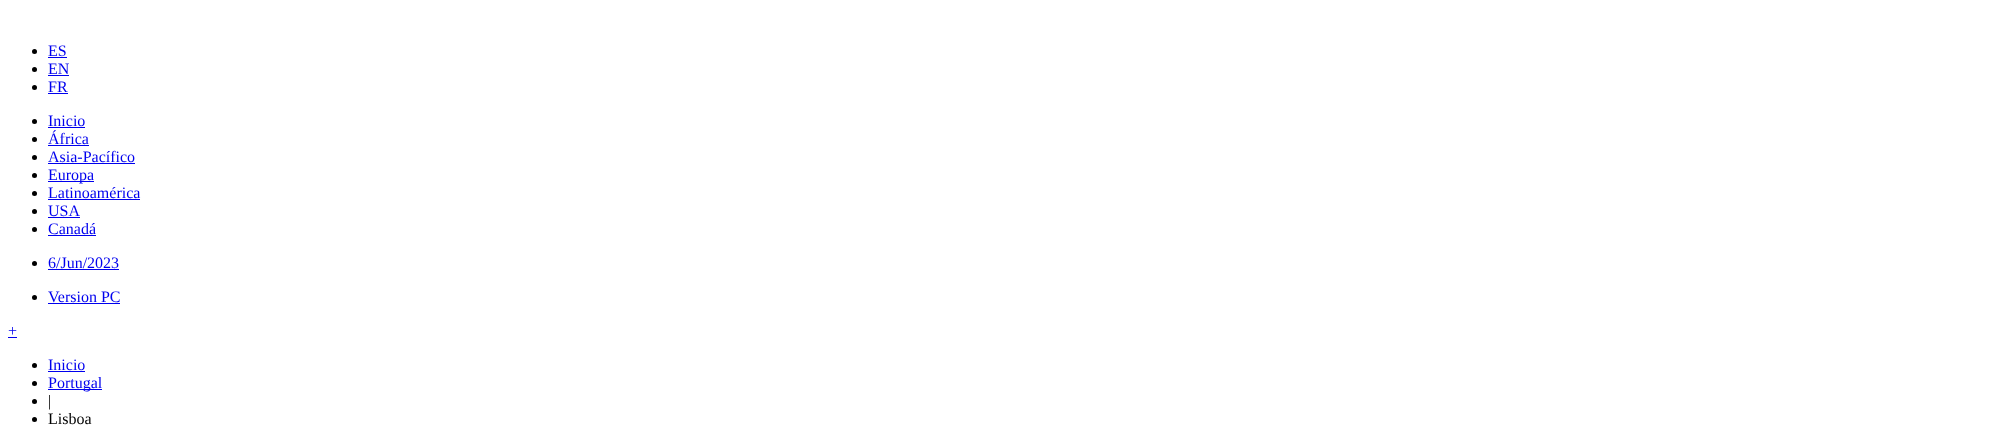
<!DOCTYPE html>
<meta charset="utf-8">
<style>body { margin: 0 } canvas { display: block }</style>
<canvas id="canvas" width="2006" height="443"></canvas>
<script type="module">
  const canvas = document.getElementById("canvas");
  const ctx = canvas.getContext("2d");
  ctx.miterLimit = 4;
  ctx.fontKerning = "normal";

  ctx.fillStyle = "#ffffff";
  ctx.fillRect(0, 0, 2006, 443);
  ctx.fillStyle = "#000000";
  ctx.beginPath();
  ctx.arc(34.5, 51.5, 2.5, 0, Math.PI * 2);
  ctx.fill();
  ctx.font = "16px Liberation Serif";
  ctx.fillStyle = "#0000ee";
  ctx.fillText("ES", 48, 56);
  ctx.fillRect(48, 57, 19, 1);
  ctx.fillStyle = "#000000";
  ctx.beginPath();
  ctx.arc(34.5, 69.5, 2.5, 0, Math.PI * 2);
  ctx.fill();
  ctx.fillStyle = "#0000ee";
  ctx.fillText("EN", 48, 74);
  ctx.fillRect(48, 75, 21, 1);
  ctx.fillStyle = "#000000";
  ctx.beginPath();
  ctx.arc(34.5, 87.5, 2.5, 0, Math.PI * 2);
  ctx.fill();
  ctx.fillStyle = "#0000ee";
  ctx.fillText("FR", 48, 92);
  ctx.fillRect(48, 93, 20, 1);
  ctx.fillStyle = "#000000";
  ctx.beginPath();
  ctx.arc(34.5, 121.5, 2.5, 0, Math.PI * 2);
  ctx.fill();
  ctx.fillStyle = "#0000ee";
  ctx.fillText("Inicio", 48, 126);
  ctx.fillRect(48, 127, 37, 1);
  ctx.fillStyle = "#000000";
  ctx.beginPath();
  ctx.arc(34.5, 139.5, 2.5, 0, Math.PI * 2);
  ctx.fill();
  ctx.fillStyle = "#0000ee";
  ctx.fillText("África", 48, 144);
  ctx.fillRect(48, 145, 41, 1);
  ctx.fillStyle = "#000000";
  ctx.beginPath();
  ctx.arc(34.5, 157.5, 2.5, 0, Math.PI * 2);
  ctx.fill();
  ctx.fillStyle = "#0000ee";
  ctx.fillText("Asia-Pacífico", 48, 162);
  ctx.fillRect(48, 163, 87, 1);
  ctx.fillStyle = "#000000";
  ctx.beginPath();
  ctx.arc(34.5, 175.5, 2.5, 0, Math.PI * 2);
  ctx.fill();
  ctx.fillStyle = "#0000ee";
  ctx.fillRect(48, 181, 46, 1);
  ctx.fillText("Europa", 48, 180);
  ctx.fillStyle = "#000000";
  ctx.beginPath();
  ctx.arc(34.5, 193.5, 2.5, 0, Math.PI * 2);
  ctx.fill();
  ctx.fillStyle = "#0000ee";
  ctx.fillText("Latinoamérica", 48, 198);
  ctx.fillRect(48, 199, 92, 1);
  ctx.fillStyle = "#000000";
  ctx.beginPath();
  ctx.arc(34.5, 211.5, 2.5, 0, Math.PI * 2);
  ctx.fill();
  ctx.fillStyle = "#0000ee";
  ctx.fillText("USA", 48, 216);
  ctx.fillRect(48, 217, 32, 1);
  ctx.fillStyle = "#000000";
  ctx.beginPath();
  ctx.arc(34.5, 229.5, 2.5, 0, Math.PI * 2);
  ctx.fill();
  ctx.fillStyle = "#0000ee";
  ctx.fillText("Canadá", 48, 234);
  ctx.fillRect(48, 235, 48, 1);
  ctx.fillStyle = "#000000";
  ctx.beginPath();
  ctx.arc(34.5, 263.5, 2.5, 0, Math.PI * 2);
  ctx.fill();
  ctx.fillStyle = "#0000ee";
  ctx.fillText("6/Jun/2023", 48, 268);
  ctx.fillRect(48, 269, 71, 1);
  ctx.fillStyle = "#000000";
  ctx.beginPath();
  ctx.arc(34.5, 297.5, 2.5, 0, Math.PI * 2);
  ctx.fill();
  ctx.fillStyle = "#0000ee";
  ctx.fillText("Version PC", 48, 302);
  ctx.fillRect(48, 303, 72, 1);
  ctx.fillText("+", 8, 336);
  ctx.fillRect(8, 337, 9, 1);
  ctx.fillStyle = "#000000";
  ctx.beginPath();
  ctx.arc(34.5, 365.5, 2.5, 0, Math.PI * 2);
  ctx.fill();
  ctx.fillStyle = "#0000ee";
  ctx.fillText("Inicio", 48, 370);
  ctx.fillRect(48, 371, 37, 1);
  ctx.fillStyle = "#000000";
  ctx.beginPath();
  ctx.arc(34.5, 383.5, 2.5, 0, Math.PI * 2);
  ctx.fill();
  ctx.fillStyle = "#0000ee";
  ctx.fillRect(48, 389, 54, 1);
  ctx.fillText("Portugal", 48, 388);
  ctx.fillStyle = "#000000";
  ctx.beginPath();
  ctx.arc(34.5, 401.5, 2.5, 0, Math.PI * 2);
  ctx.fill();
  ctx.fillText("|", 48, 406);
  ctx.beginPath();
  ctx.arc(34.5, 419.5, 2.5, 0, Math.PI * 2);
  ctx.fill();
  ctx.fillText("Lisboa", 48, 424);
</script>
